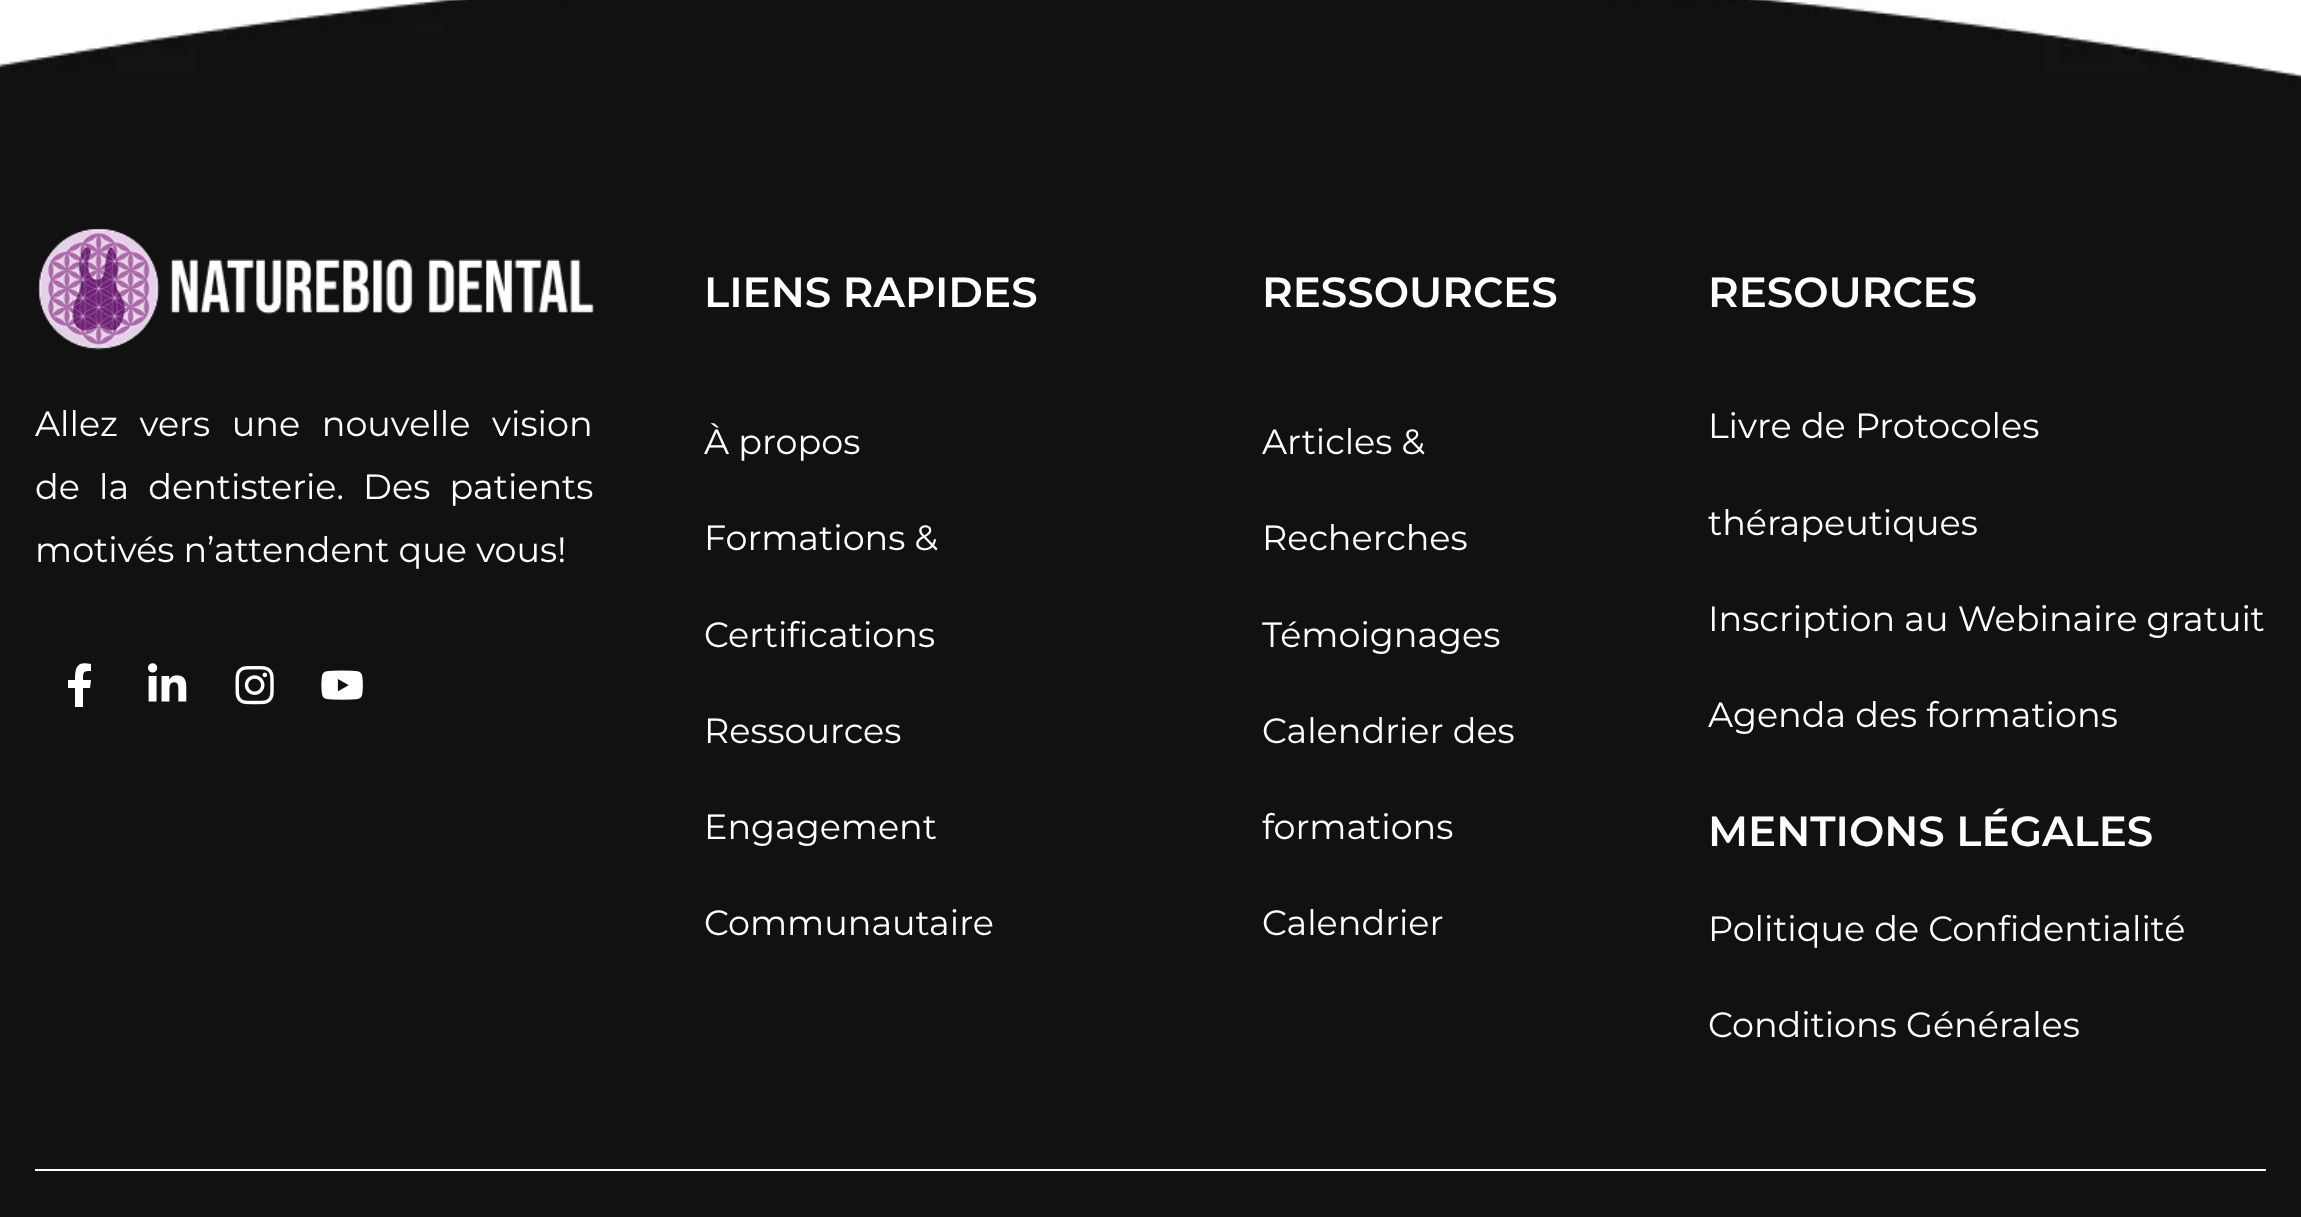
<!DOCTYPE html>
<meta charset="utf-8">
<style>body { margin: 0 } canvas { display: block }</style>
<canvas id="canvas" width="2301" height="1217"></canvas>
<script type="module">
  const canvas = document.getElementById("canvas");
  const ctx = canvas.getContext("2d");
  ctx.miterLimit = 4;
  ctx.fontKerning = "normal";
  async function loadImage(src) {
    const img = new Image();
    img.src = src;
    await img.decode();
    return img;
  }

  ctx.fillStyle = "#ffffff";
  ctx.fillRect(0, 0, 2301, 1217);
  ctx.drawImage(await loadImage("img1.png"), 0, 0, 2301, 1217);
  ctx.drawImage(await loadImage("img2.png"), 37, 228, 557, 122);
  ctx.wordSpacing = "12.5px";
  ctx.font = "35px Montserrat";
  ctx.fillText("Allez vers une nouvelle vision", 35, 436);
  ctx.wordSpacing = "10px";
  ctx.fillText("de la dentisterie. Des patients", 35, 499);
  ctx.wordSpacing = "0px";
  ctx.fillText("motivés n’attendent que vous!", 35, 562);
  ctx.beginPath();
  ctx.moveTo(90, 688);
  ctx.lineTo(91, 680);
  ctx.lineTo(83, 680);
  ctx.bezierCurveTo(83, 672, 83, 671, 91, 671);
  ctx.lineTo(91, 664);
  ctx.bezierCurveTo(77, 661, 75, 667, 75, 680);
  ctx.lineTo(68, 680);
  ctx.lineTo(68, 688);
  ctx.lineTo(75, 688);
  ctx.lineTo(75, 707);
  ctx.lineTo(83, 707);
  ctx.lineTo(83, 688);
  ctx.closePath();
  ctx.fill();
  ctx.drawImage(await loadImage("img3.png"), 148, 663, 39, 39);
  ctx.drawImage(await loadImage("img4.png"), 235, 666, 39, 39);
  ctx.drawImage(await loadImage("img5.png"), 321, 670, 42, 30);
  ctx.font = "600 42px Montserrat";
  ctx.fillText("LIENS RAPIDES", 704, 307);
  ctx.font = "35px Montserrat";
  ctx.fillText("À propos", 704, 454);
  ctx.fillText("Formations &", 704, 550);
  ctx.fillText("Certifications", 704, 647);
  ctx.fillText("Ressources", 704, 743);
  ctx.fillText("Engagement", 704, 839);
  ctx.fillText("Communautaire", 704, 935);
  ctx.font = "600 42px Montserrat";
  ctx.fillText("RESSOURCES", 1262, 307);
  ctx.font = "35px Montserrat";
  ctx.fillText("Articles &", 1262, 454);
  ctx.fillText("Recherches", 1262, 550);
  ctx.fillText("Témoignages", 1262, 647);
  ctx.fillText("Calendrier des", 1262, 743);
  ctx.fillText("formations", 1262, 839);
  ctx.fillText("Calendrier", 1262, 935);
  ctx.font = "600 42px Montserrat";
  ctx.fillText("RESOURCES", 1708, 307);
  ctx.font = "35px Montserrat";
  ctx.fillText("Livre de Protocoles", 1708, 438);
  ctx.fillText("thérapeutiques", 1708, 535);
  ctx.fillText("Inscription au Webinaire gratuit", 1708, 631);
  ctx.fillText("Agenda des formations", 1708, 727);
  ctx.font = "600 42px Montserrat";
  ctx.fillText("MENTIONS LÉGALES", 1708, 846);
  ctx.font = "35px Montserrat";
  ctx.fillText("Politique de Confidentialité", 1708, 941);
  ctx.fillText("Conditions Générales", 1708, 1037);
  ctx.fillRect(35, 1169, 2231, 2);
</script>
